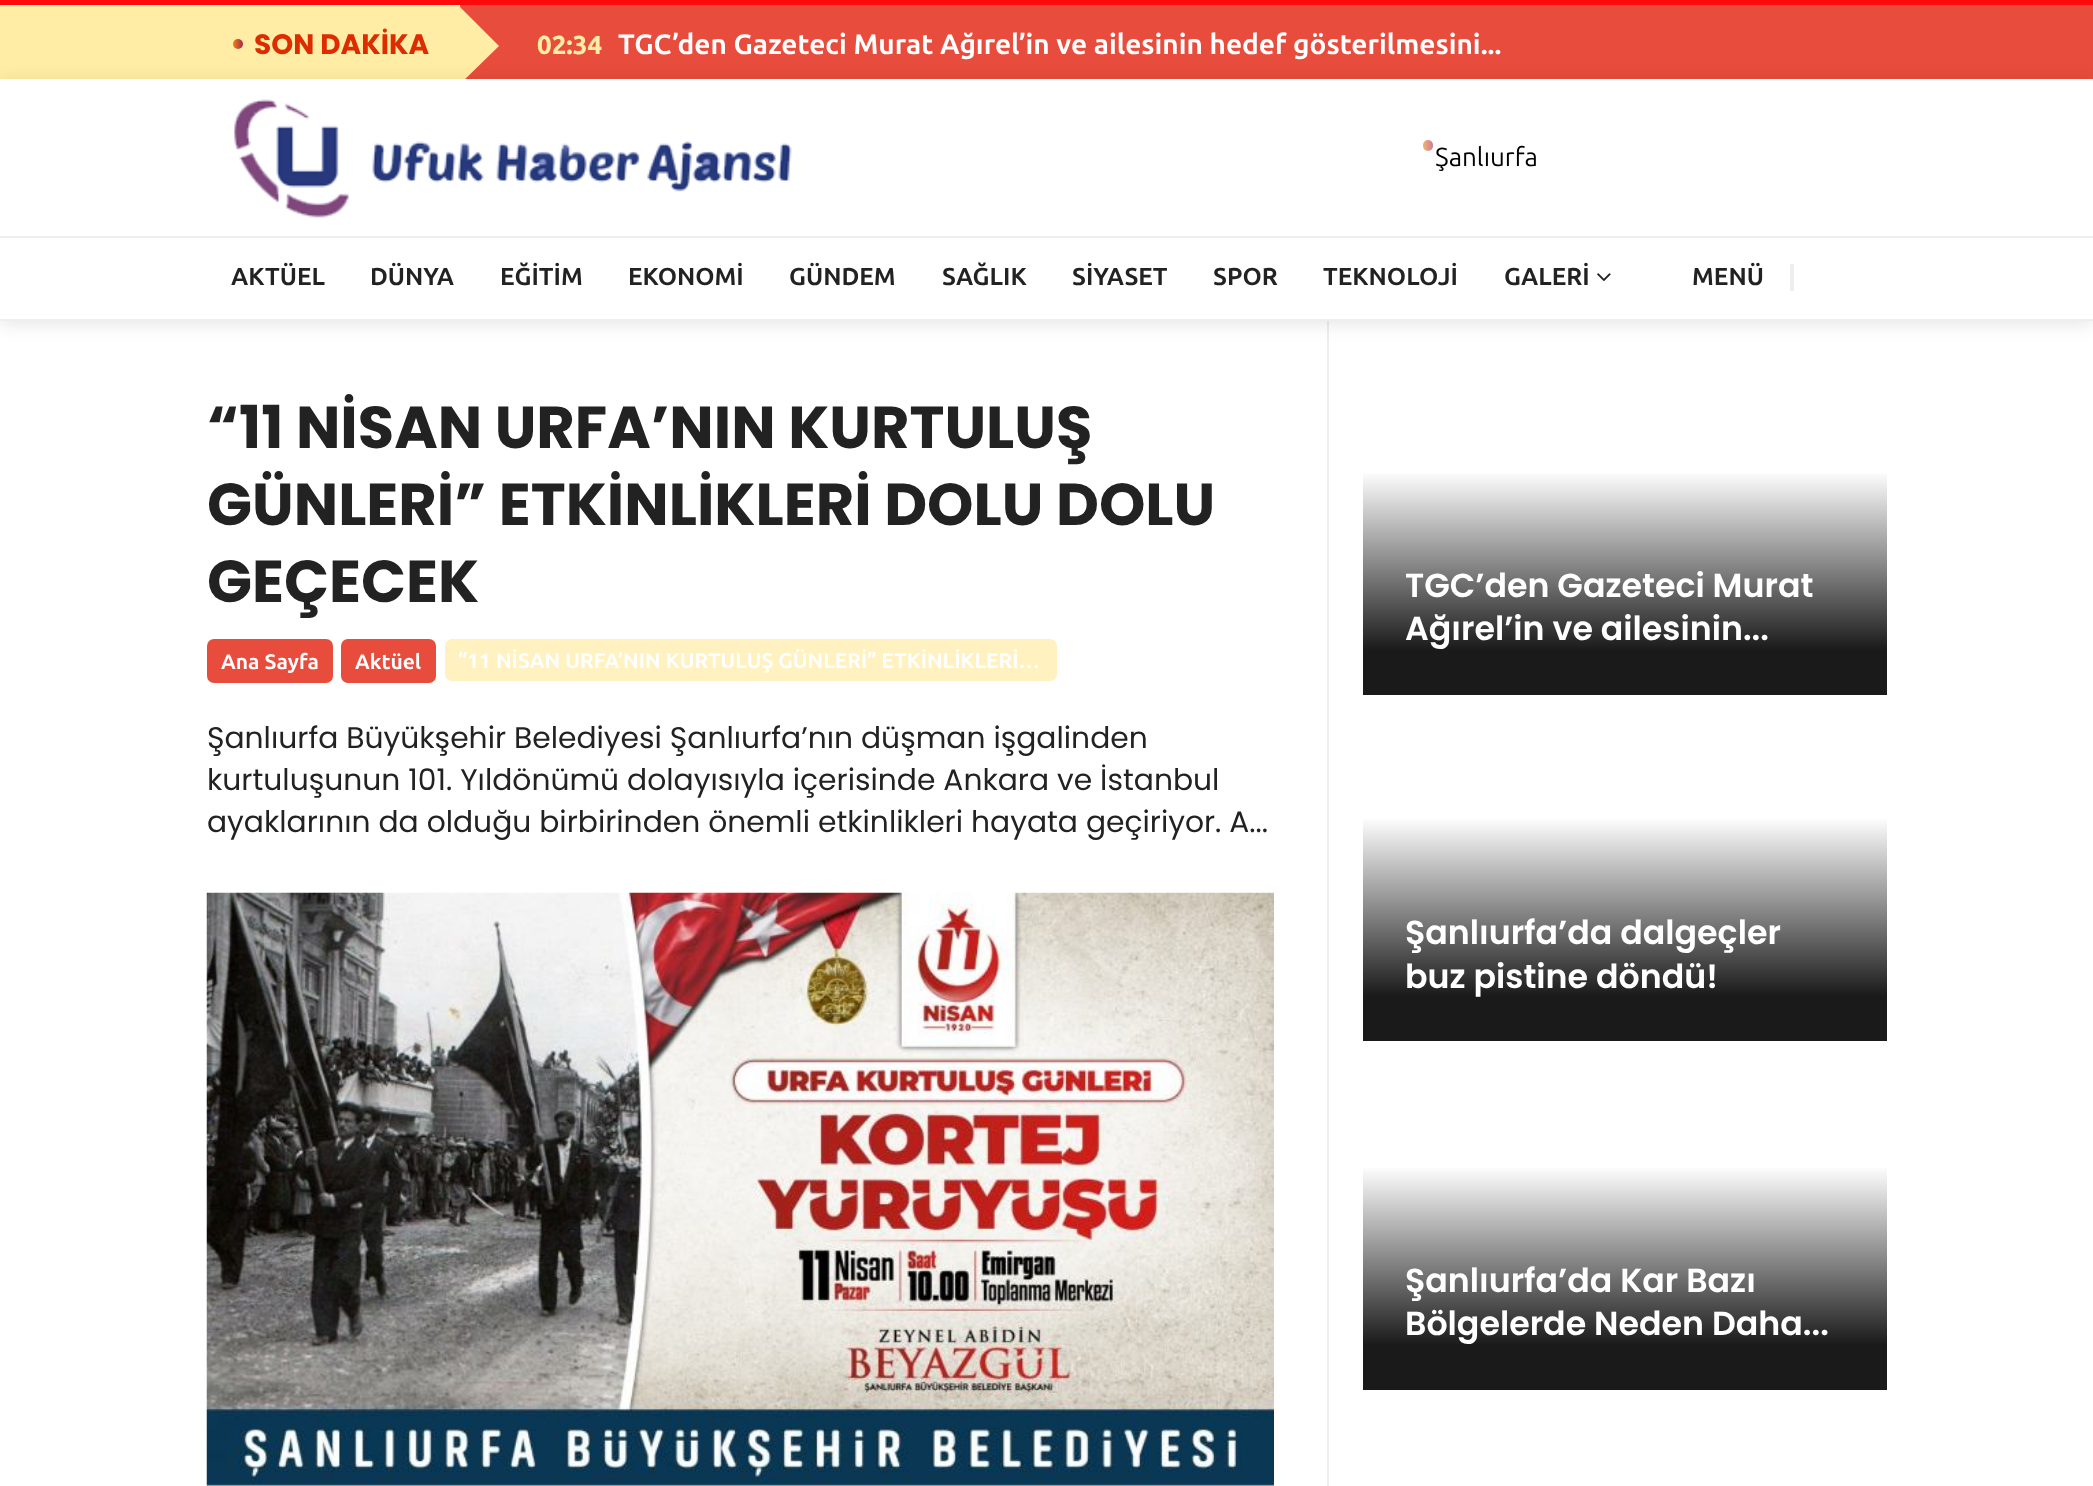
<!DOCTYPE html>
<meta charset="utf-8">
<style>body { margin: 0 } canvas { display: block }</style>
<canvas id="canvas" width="2093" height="1486"></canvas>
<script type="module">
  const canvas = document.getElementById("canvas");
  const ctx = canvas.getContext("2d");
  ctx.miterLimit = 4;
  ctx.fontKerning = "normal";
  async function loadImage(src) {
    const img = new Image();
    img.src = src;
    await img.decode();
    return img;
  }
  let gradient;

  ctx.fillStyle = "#ffffff";
  ctx.fillRect(0, 0, 2093, 1486);
  ctx.fillStyle = "#e74c3c";
  ctx.fillRect(460, 5, 1633, 74);
  ctx.fillStyle = "#ff0a0a";
  ctx.fillRect(0, 0, 2093, 5);
  ctx.fillStyle = "#ffeda5";
  ctx.fillRect(0, 5, 460, 74);
  gradient = ctx.createLinearGradient(233, 44, 243, 44);
  gradient.addColorStop(0, "#f07f0f");
  gradient.addColorStop(1, "#a72555");
  ctx.fillStyle = gradient;
  ctx.beginPath();
  ctx.arc(238, 44, 5, 0, Math.PI * 2);
  ctx.fill();
  ctx.font = "bold 28px Poppins";
  ctx.fillStyle = "#dc2c00";
  ctx.fillText("SON DAKİKA", 254, 54);
  ctx.save();
  ctx.beginPath();
  ctx.rect(0, 5, 2093, 74);
  ctx.clip();
  ctx.fillStyle = "#ffeda5";
  ctx.beginPath();
  ctx.moveTo(458, 86);
  ctx.lineTo(458, 5);
  ctx.lineTo(499, 46);
  ctx.closePath();
  ctx.fill();
  ctx.restore();
  ctx.font = "800 26px Ubuntu";
  ctx.fillStyle = "#ffeda5";
  ctx.fillText("02:34", 537, 54);
  ctx.font = "bold 28px Ubuntu";
  ctx.fillStyle = "#ffffff";
  ctx.fillText("TGC’den Gazeteci Murat Ağırel’in ve ailesinin hedef gösterilmesini...", 618, 54);
  ctx.fillStyle = "#eeeeee";
  ctx.fillRect(1327, 320, 2, 1166);
  ctx.save();
  ctx.beginPath();
  ctx.moveTo(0, 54);
  ctx.lineTo(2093, 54);
  ctx.lineTo(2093, 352);
  ctx.lineTo(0, 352);
  ctx.closePath();
  ctx.moveTo(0, 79);
  ctx.lineTo(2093, 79);
  ctx.lineTo(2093, 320);
  ctx.lineTo(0, 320);
  ctx.closePath();
  ctx.clip("evenodd");
  ctx.fillStyle = "rgba(0, 0, 0, 0.1)";
  ctx.filter = "blur(9px)";
  ctx.beginPath();
  ctx.rect(0, 82, 2093, 242);
  ctx.fill();
  ctx.filter = "none";
  ctx.restore();
  ctx.drawImage(await loadImage("img1.png"), 234, 99, 558, 119);
  gradient = ctx.createLinearGradient(1423, 145, 1433, 145);
  gradient.addColorStop(0, "#f6b26f");
  gradient.addColorStop(1, "#ca7c99");
  ctx.fillStyle = gradient;
  ctx.beginPath();
  ctx.roundRect(1423, 140, 10, 11, 5);
  ctx.fill();
  ctx.font = "26px Ubuntu";
  ctx.fillStyle = "#000000";
  ctx.fillText("Şanlıurfa", 1435, 166);
  ctx.fillStyle = "#eeeeee";
  ctx.fillRect(0, 236, 2093, 2);
  ctx.fillRect(0, 319, 2093, 2);
  ctx.font = "bold 24.5px Ubuntu";
  ctx.fillStyle = "#222222";
  ctx.fillText("AKTÜEL", 231, 285);
  ctx.fillText("DÜNYA", 370, 285);
  ctx.fillText("EĞİTİM", 500, 285);
  ctx.fillText("EKONOMİ", 628, 285);
  ctx.fillText("GÜNDEM", 789, 285);
  ctx.fillText("SAĞLIK", 942, 285);
  ctx.fillText("SİYASET", 1072, 285);
  ctx.fillText("SPOR", 1213, 285);
  ctx.fillText("TEKNOLOJİ", 1323, 285);
  ctx.fillText("GALERİ", 1504, 285);
  ctx.drawImage(await loadImage("img2.png"), 1597, 273, 14, 9);
  ctx.fillText("MENÜ", 1692, 285);
  ctx.fillStyle = "#eeeeee";
  ctx.fillRect(1790, 264, 4, 27);
  ctx.font = "bold 59.1px Poppins";
  ctx.fillStyle = "#222222";
  ctx.fillText("“11 NİSAN URFA’NIN KURTULUŞ", 207, 448);
  ctx.fillText("GÜNLERİ” ETKİNLİKLERİ DOLU DOLU", 207, 525);
  ctx.fillText("GEÇECEK", 207, 602);
  ctx.fillStyle = "#e74c3c";
  ctx.beginPath();
  ctx.roundRect(207, 639, 126, 44, 7);
  ctx.fill();
  ctx.font = "bold 21px Ubuntu";
  ctx.fillStyle = "#ffffff";
  ctx.fillText("Ana Sayfa", 221, 669);
  ctx.fillStyle = "#e74c3c";
  ctx.beginPath();
  ctx.roundRect(341, 639, 95, 44, 7);
  ctx.fill();
  ctx.fillStyle = "#ffffff";
  ctx.fillText("Aktüel", 355, 669);
  ctx.fillStyle = "#fff2c0";
  ctx.beginPath();
  ctx.roundRect(445, 639, 612, 42, 7);
  ctx.fill();
  ctx.fillStyle = "#ffffff";
  ctx.fillText("“11 NİSAN URFA’NIN KURTULUŞ GÜNLERİ” ETKİNLİKLERİ…", 458, 668);
  ctx.font = "29.75px Poppins";
  ctx.fillStyle = "#222222";
  ctx.fillText("Şanlıurfa Büyükşehir Belediyesi Şanlıurfa’nın düşman işgalinden", 207, 748);
  ctx.fillText("kurtuluşunun 101. Yıldönümü dolayısıyla içerisinde Ankara ve İstanbul", 207, 790);
  ctx.fillText("ayaklarının da olduğu birbirinden önemli etkinlikleri hayata geçiriyor. A...", 207, 832);
  ctx.drawImage(await loadImage("img3.png"), 206, 892, 1068, 594);
  gradient = ctx.createLinearGradient(1625, 695, 1625, 471);
  gradient.addColorStop(0.2, "#1a1a1a");
  gradient.addColorStop(1, "#ffffff");
  ctx.fillStyle = gradient;
  ctx.fillRect(1363, 473, 524, 222);
  ctx.font = "600 33.25px Poppins";
  ctx.fillStyle = "#ffffff";
  ctx.fillText("TGC’den Gazeteci Murat", 1405, 597);
  ctx.fillText("Ağırel’in ve ailesinin...", 1405, 640);
  gradient = ctx.createLinearGradient(1625, 1041, 1625, 817);
  gradient.addColorStop(0.2, "#1a1a1a");
  gradient.addColorStop(1, "#ffffff");
  ctx.fillStyle = gradient;
  ctx.fillRect(1363, 819, 524, 222);
  ctx.fillStyle = "#ffffff";
  ctx.fillText("Şanlıurfa’da dalgeçler", 1405, 944);
  ctx.fillText("buz pistine döndü!", 1405, 988);
  gradient = ctx.createLinearGradient(1625, 1390, 1625, 1166);
  gradient.addColorStop(0.2, "#1a1a1a");
  gradient.addColorStop(1, "#ffffff");
  ctx.fillStyle = gradient;
  ctx.fillRect(1363, 1168, 524, 222);
  ctx.fillStyle = "#ffffff";
  ctx.fillText("Şanlıurfa’da Kar Bazı", 1405, 1292);
  ctx.fillText("Bölgelerde Neden Daha...", 1405, 1335);
</script>
